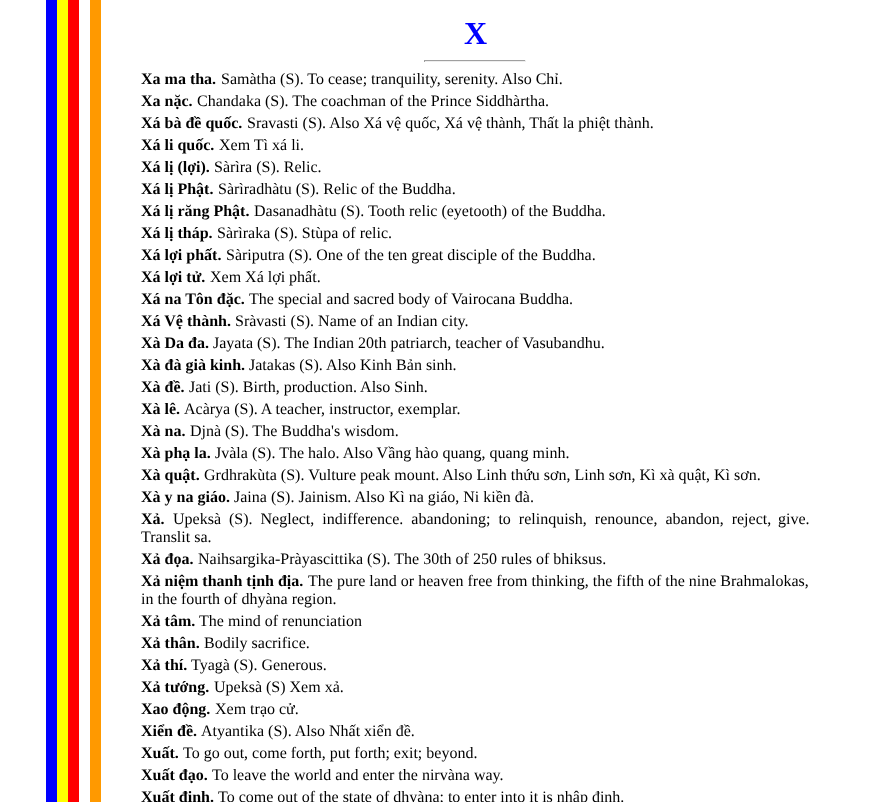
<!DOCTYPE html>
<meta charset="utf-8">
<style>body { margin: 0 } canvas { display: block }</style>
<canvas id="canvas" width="877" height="802"></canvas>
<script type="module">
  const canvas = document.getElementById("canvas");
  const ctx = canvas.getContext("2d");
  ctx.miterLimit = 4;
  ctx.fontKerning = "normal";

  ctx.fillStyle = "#ffffff";
  ctx.fillRect(0, 0, 877, 802);
  ctx.fillStyle = "#0000ff";
  ctx.fillRect(46, 0, 11, 802);
  ctx.fillStyle = "#ffff00";
  ctx.fillRect(57, 0, 11, 802);
  ctx.fillStyle = "#ff0000";
  ctx.fillRect(68, 0, 11, 802);
  ctx.fillStyle = "#ff9900";
  ctx.fillRect(90, 0, 11, 802);
  ctx.font = "bold 32px Liberation Serif";
  ctx.fillStyle = "#0000ff";
  ctx.fillText("X", 464, 44);
  ctx.fillStyle = "#9f9f9f";
  ctx.fillRect(424, 60, 102, 1);
  ctx.fillStyle = "#eeeeee";
  ctx.fillRect(525, 60, 1, 2);
  ctx.fillRect(424, 61, 102, 1);
  ctx.fillStyle = "#9f9f9f";
  ctx.fillRect(424, 60, 1, 2);
  ctx.font = "bold 16px Liberation Serif";
  ctx.fillStyle = "#000000";
  ctx.fillText("Xa ma tha.", 141, 84);
  ctx.font = "16px Liberation Serif";
  ctx.fillText("Samàtha (S). To cease; tranquility, serenity. Also Chỉ.", 221, 84);
  ctx.font = "bold 16px Liberation Serif";
  ctx.fillText("Xa nặc.", 141, 106);
  ctx.font = "16px Liberation Serif";
  ctx.fillText("Chandaka (S). The coachman of the Prince Siddhàrtha.", 197, 106);
  ctx.font = "bold 16px Liberation Serif";
  ctx.fillText("Xá bà đề quốc.", 141, 128);
  ctx.font = "16px Liberation Serif";
  ctx.fillText("Sravasti (S). Also Xá vệ quốc, Xá vệ thành, Thất la phiệt thành.", 247, 128);
  ctx.font = "bold 16px Liberation Serif";
  ctx.fillText("Xá li quốc.", 141, 150);
  ctx.font = "16px Liberation Serif";
  ctx.fillText("Xem Tì xá li.", 219, 150);
  ctx.font = "bold 16px Liberation Serif";
  ctx.fillText("Xá lị (lợi).", 141, 172);
  ctx.font = "16px Liberation Serif";
  ctx.fillText("Sàrìra (S). Relic.", 214, 172);
  ctx.font = "bold 16px Liberation Serif";
  ctx.fillText("Xá lị Phật.", 141, 194);
  ctx.font = "16px Liberation Serif";
  ctx.fillText("Sàrìradhàtu (S). Relic of the Buddha.", 218, 194);
  ctx.font = "bold 16px Liberation Serif";
  ctx.fillText("Xá lị răng Phật.", 141, 216);
  ctx.font = "16px Liberation Serif";
  ctx.fillText("Dasanadhàtu (S). Tooth relic (eyetooth) of the Buddha.", 254, 216);
  ctx.font = "bold 16px Liberation Serif";
  ctx.fillText("Xá lị tháp.", 141, 238);
  ctx.font = "16px Liberation Serif";
  ctx.fillText("Sàrìraka (S). Stùpa of relic.", 217, 238);
  ctx.font = "bold 16px Liberation Serif";
  ctx.fillText("Xá lợi phất.", 141, 260);
  ctx.font = "16px Liberation Serif";
  ctx.fillText("Sàriputra (S). One of the ten great disciple of the Buddha.", 226, 260);
  ctx.font = "bold 16px Liberation Serif";
  ctx.fillText("Xá lợi tử.", 141, 282);
  ctx.font = "16px Liberation Serif";
  ctx.fillText("Xem Xá lợi phất.", 210, 282);
  ctx.font = "bold 16px Liberation Serif";
  ctx.fillText("Xá na Tôn đặc.", 141, 304);
  ctx.font = "16px Liberation Serif";
  ctx.fillText("The special and sacred body of Vairocana Buddha.", 249, 304);
  ctx.font = "bold 16px Liberation Serif";
  ctx.fillText("Xá Vệ thành.", 141, 326);
  ctx.font = "16px Liberation Serif";
  ctx.fillText("Sràvasti (S). Name of an Indian city.", 235, 326);
  ctx.font = "bold 16px Liberation Serif";
  ctx.fillText("Xà Da đa.", 141, 348);
  ctx.font = "16px Liberation Serif";
  ctx.fillText("Jayata (S). The Indian 20th patriarch, teacher of Vasubandhu.", 213, 348);
  ctx.font = "bold 16px Liberation Serif";
  ctx.fillText("Xà đà già kinh.", 141, 370);
  ctx.font = "16px Liberation Serif";
  ctx.fillText("Jatakas (S). Also Kinh Bản sinh.", 249, 370);
  ctx.font = "bold 16px Liberation Serif";
  ctx.fillText("Xà đề.", 141, 392);
  ctx.font = "16px Liberation Serif";
  ctx.fillText("Jati (S). Birth, production. Also Sinh.", 189, 392);
  ctx.font = "bold 16px Liberation Serif";
  ctx.fillText("Xà lê.", 141, 414);
  ctx.font = "16px Liberation Serif";
  ctx.fillText("Acàrya (S). A teacher, instructor, exemplar.", 184, 414);
  ctx.font = "bold 16px Liberation Serif";
  ctx.fillText("Xà na.", 141, 436);
  ctx.font = "16px Liberation Serif";
  ctx.fillText("Djnà (S). The Buddha's wisdom.", 190, 436);
  ctx.font = "bold 16px Liberation Serif";
  ctx.fillText("Xà phạ la.", 141, 458);
  ctx.font = "16px Liberation Serif";
  ctx.fillText("Jvàla (S). The halo. Also Vầng hào quang, quang minh.", 215, 458);
  ctx.font = "bold 16px Liberation Serif";
  ctx.fillText("Xà quật.", 141, 480);
  ctx.font = "16px Liberation Serif";
  ctx.fillText("Grdhrakùta (S). Vulture peak mount. Also Linh thứu sơn, Linh sơn, Kì xà quật, Kì sơn.", 204, 480);
  ctx.font = "bold 16px Liberation Serif";
  ctx.fillText("Xà y na giáo.", 141, 502);
  ctx.font = "16px Liberation Serif";
  ctx.fillText("Jaina (S). Jainism. Also Kì na giáo, Ni kiền đà.", 234, 502);
  ctx.font = "bold 16px Liberation Serif";
  ctx.fillText("Xả.", 141, 524);
  ctx.wordSpacing = "4px";
  ctx.font = "16px Liberation Serif";
  ctx.fillText("Upeksà (S). Neglect, indifference. abandoning; to relinquish, renounce, abandon, reject,", 173, 524);
  ctx.wordSpacing = "0px";
  ctx.fillText("give.", 778, 524);
  ctx.fillText("Translit sa.", 141, 542);
  ctx.font = "bold 16px Liberation Serif";
  ctx.fillText("Xả đọa.", 141, 564);
  ctx.font = "16px Liberation Serif";
  ctx.fillText("Naihsargika-Pràyascittika (S). The 30th of 250 rules of bhiksus.", 198, 564);
  ctx.font = "bold 16px Liberation Serif";
  ctx.fillText("Xả niệm thanh tịnh địa.", 141, 586);
  ctx.font = "16px Liberation Serif";
  ctx.fillText("The pure land or heaven free from thinking, the fifth of the nine Brahmalokas,", 308, 586);
  ctx.fillText("in the fourth of dhyàna region.", 141, 604);
  ctx.font = "bold 16px Liberation Serif";
  ctx.fillText("Xả tâm.", 141, 626);
  ctx.font = "16px Liberation Serif";
  ctx.fillText("The mind of renunciation", 199, 626);
  ctx.font = "bold 16px Liberation Serif";
  ctx.fillText("Xả thân.", 141, 648);
  ctx.font = "16px Liberation Serif";
  ctx.fillText("Bodily sacrifice.", 204, 648);
  ctx.font = "bold 16px Liberation Serif";
  ctx.fillText("Xả thí.", 141, 670);
  ctx.font = "16px Liberation Serif";
  ctx.fillText("Tyagà (S). Generous.", 191, 670);
  ctx.font = "bold 16px Liberation Serif";
  ctx.fillText("Xả tướng.", 141, 692);
  ctx.font = "16px Liberation Serif";
  ctx.fillText("Upeksà (S) Xem xả.", 214, 692);
  ctx.font = "bold 16px Liberation Serif";
  ctx.fillText("Xao động.", 141, 714);
  ctx.font = "16px Liberation Serif";
  ctx.fillText("Xem trạo cử.", 215, 714);
  ctx.font = "bold 16px Liberation Serif";
  ctx.fillText("Xiển đề.", 141, 736);
  ctx.font = "16px Liberation Serif";
  ctx.fillText("Atyantika (S). Also Nhất xiển đề.", 201, 736);
  ctx.font = "bold 16px Liberation Serif";
  ctx.fillText("Xuất.", 141, 758);
  ctx.font = "16px Liberation Serif";
  ctx.fillText("To go out, come forth, put forth; exit; beyond.", 183, 758);
  ctx.font = "bold 16px Liberation Serif";
  ctx.fillText("Xuất đạo.", 141, 780);
  ctx.font = "16px Liberation Serif";
  ctx.fillText("To leave the world and enter the nirvàna way.", 212, 780);
  ctx.font = "bold 16px Liberation Serif";
  ctx.fillText("Xuất định.", 141, 802);
  ctx.font = "16px Liberation Serif";
  ctx.fillText("To come out of the state of dhyàna; to enter into it is nhập định.", 218, 802);
</script>
